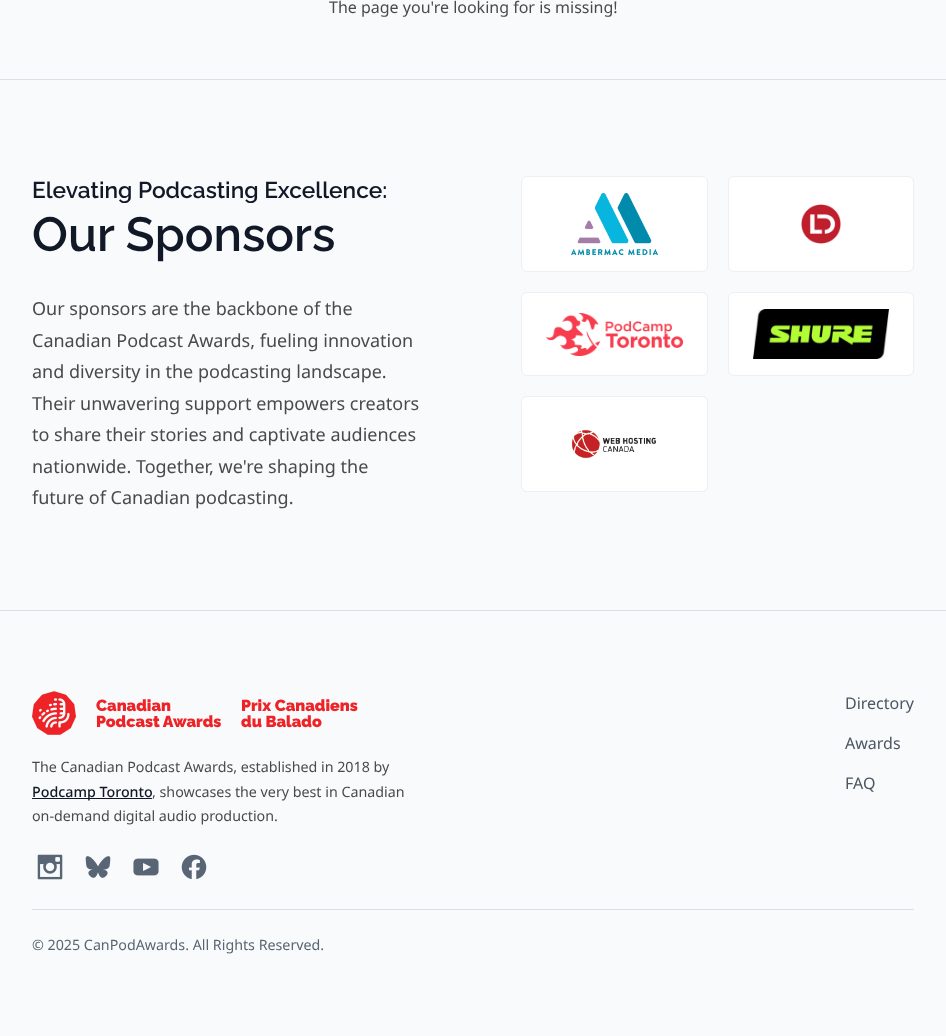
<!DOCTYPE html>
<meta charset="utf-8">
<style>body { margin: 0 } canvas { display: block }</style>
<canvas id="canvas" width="946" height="1036"></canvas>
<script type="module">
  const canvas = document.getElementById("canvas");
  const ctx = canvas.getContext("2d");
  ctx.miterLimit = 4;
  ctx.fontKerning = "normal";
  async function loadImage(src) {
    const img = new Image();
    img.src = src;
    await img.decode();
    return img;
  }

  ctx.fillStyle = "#f9fafb";
  ctx.fillRect(0, 0, 946, 1036);
  ctx.font = "16px Noto Sans";
  ctx.fillStyle = "#4a4a4a";
  ctx.fillText("The page you're looking for is missing!", 329, 13);
  ctx.fillStyle = "#dbe0e4";
  ctx.fillRect(0, 79, 946, 1);
  ctx.font = "600 22.75px Raleway";
  ctx.fillStyle = "#111827";
  ctx.fillText("Elevating Podcasting Excellence:", 32, 198);
  ctx.font = "600 47.75px Raleway";
  ctx.fillText("Our Sponsors", 32, 251);
  ctx.font = "18px Noto Sans";
  ctx.fillStyle = "#4a4a4a";
  ctx.fillText("Our sponsors are the backbone of the", 32, 315);
  ctx.fillText("Canadian Podcast Awards, fueling innovation", 32, 347);
  ctx.fillText("and diversity in the podcasting landscape.", 32, 378);
  ctx.fillText("Their unwavering support empowers creators", 32, 410);
  ctx.fillText("to share their stories and captivate audiences", 32, 441);
  ctx.fillText("nationwide. Together, we're shaping the", 32, 473);
  ctx.fillText("future of Canadian podcasting.", 32, 504);
  ctx.fillStyle = "#ffffff";
  ctx.beginPath();
  ctx.roundRect(521.5, 176.5, 186, 95, 5.5);
  ctx.fill();
  ctx.strokeStyle = "#edeff1";
  ctx.stroke();
  ctx.drawImage(await loadImage("img1.png"), 571, 193, 87, 62);
  ctx.beginPath();
  ctx.roundRect(728.5, 176.5, 185, 95, 5.5);
  ctx.fill();
  ctx.stroke();
  ctx.drawImage(await loadImage("img2.png"), 801, 204, 40, 40);
  ctx.beginPath();
  ctx.roundRect(521.5, 292.5, 186, 83, 5.5);
  ctx.fill();
  ctx.stroke();
  ctx.drawImage(await loadImage("img3.png"), 546, 313, 137, 43);
  ctx.beginPath();
  ctx.roundRect(728.5, 292.5, 185, 83, 5.5);
  ctx.fill();
  ctx.stroke();
  ctx.drawImage(await loadImage("img4.png"), 753, 309, 136, 50);
  ctx.beginPath();
  ctx.roundRect(521.5, 396.5, 186, 95, 5.5);
  ctx.fill();
  ctx.stroke();
  ctx.drawImage(await loadImage("img5.png"), 572, 429, 84, 30);
  ctx.fillStyle = "#dbe0e4";
  ctx.fillRect(0, 610, 946, 1);
  ctx.drawImage(await loadImage("img6.png"), 32, 691, 44, 44);
  ctx.font = "900 16px Raleway";
  ctx.fillStyle = "#ed2327";
  ctx.fillText("Canadian", 96, 711);
  ctx.fillText("Podcast Awards", 96, 727);
  ctx.fillText("Prix Canadiens", 241, 711);
  ctx.fillText("du Balado", 241, 727);
  ctx.font = "14.25px Noto Sans";
  ctx.fillStyle = "#4a4a4a";
  ctx.fillText("The Canadian Podcast Awards, established in 2018 by", 32, 772);
  ctx.fillStyle = "#111827";
  ctx.fillRect(32, 798, 120, 1);
  ctx.font = "500 14.25px Noto Sans";
  ctx.fillText("Podcamp Toronto", 32, 797);
  ctx.font = "14.25px Noto Sans";
  ctx.fillStyle = "#4a4a4a";
  ctx.fillText(", showcases the very best in Canadian", 152, 797);
  ctx.fillText("on-demand digital audio production.", 32, 821);
  ctx.drawImage(await loadImage("img7.png"), 37, 854, 26, 26);
  ctx.drawImage(await loadImage("img8.png"), 85, 856, 26, 22);
  ctx.drawImage(await loadImage("img9.png"), 133, 858, 26, 18);
  ctx.drawImage(await loadImage("img10.png"), 181, 854, 26, 26);
  ctx.font = "16px Noto Sans";
  ctx.fillStyle = "#4b5563";
  ctx.fillText("Directory", 845, 709);
  ctx.fillText("Awards", 845, 749);
  ctx.fillText("FAQ", 845, 789);
  ctx.fillStyle = "#dbe0e4";
  ctx.fillRect(32, 909, 882, 1);
  ctx.font = "14.25px Noto Sans";
  ctx.fillStyle = "#576574";
  ctx.fillText("© 2025 CanPodAwards. All Rights Reserved.", 32, 950);
</script>
